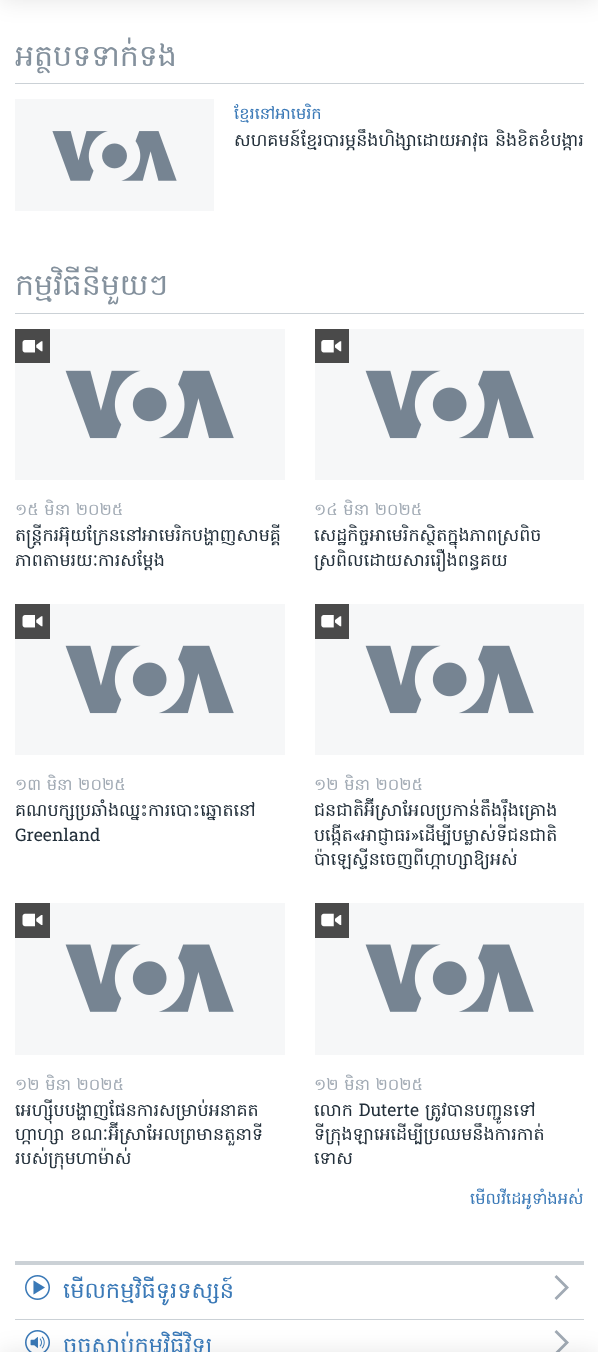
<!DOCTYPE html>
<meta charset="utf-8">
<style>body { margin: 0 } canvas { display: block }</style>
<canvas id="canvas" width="598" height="1352"></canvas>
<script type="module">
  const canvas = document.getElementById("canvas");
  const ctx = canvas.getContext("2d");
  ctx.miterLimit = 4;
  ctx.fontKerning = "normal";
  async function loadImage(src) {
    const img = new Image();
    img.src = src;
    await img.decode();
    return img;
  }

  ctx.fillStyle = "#ffffff";
  ctx.fillRect(0, 0, 598, 1352);
  ctx.fillStyle = "rgba(0, 0, 0, 0.1)";
  ctx.filter = "blur(12.5px)";
  ctx.beginPath();
  ctx.rect(0, -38, 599, 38);
  ctx.fill();
  ctx.filter = "none";
  ctx.fillStyle = "#cbd1d6";
  ctx.fillRect(15, 1319, 569, 1);
  ctx.drawImage(await loadImage("img9.png"), 25, 1330, 25, 22);
  ctx.fillStyle = "#a1aab4";
  ctx.beginPath();
  ctx.moveTo(556.5, 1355);
  ctx.lineTo(569, 1342.5);
  ctx.lineTo(556.5, 1330);
  ctx.lineTo(554.5, 1332);
  ctx.lineTo(565, 1342.5);
  ctx.lineTo(554.5, 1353);
  ctx.closePath();
  ctx.fill();
  ctx.fillStyle = "rgba(0, 0, 0, 0.1)";
  ctx.filter = "blur(12.5px)";
  ctx.beginPath();
  ctx.rect(0, 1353, 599, 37);
  ctx.fill();
  ctx.filter = "none";
  ctx.fillStyle = "#cbd1d6";
  ctx.fillRect(15, 83, 569, 1);
  ctx.font = "30px Hanuman";
  ctx.fillStyle = "#84919d";
  ctx.fillText("អត្ថបទទាក់ទង", 15, 66);
  ctx.fillStyle = "#f6f7f8";
  ctx.fillRect(15, 99, 199, 112);
  ctx.drawImage(await loadImage("img1.png"), 52, 131, 125, 50);
  ctx.font = "16.25px Hanuman";
  ctx.fillStyle = "#3a79b7";
  ctx.fillText("ខ្មែរនៅអាមេរិក", 234, 119);
  ctx.font = "17.5px Hanuman";
  ctx.fillStyle = "#222f3a";
  ctx.fillText("សហគមន៍ខ្មែរបារម្ភនឹងហិង្សាដោយអាវុធ និងខិតខំបង្ការ", 234, 146);
  ctx.fillStyle = "#cbd1d6";
  ctx.fillRect(15, 313, 569, 1);
  ctx.font = "30px Hanuman";
  ctx.fillStyle = "#84919d";
  ctx.fillText("កម្មវិធីនីមួយៗ", 15, 295);
  ctx.fillStyle = "#f6f7f8";
  ctx.fillRect(15, 329, 270, 151);
  ctx.drawImage(await loadImage("img2.png"), 65, 370, 169, 69);
  ctx.fillStyle = "#4a4a4a";
  ctx.fillRect(15, 329, 35, 34);
  ctx.drawImage(await loadImage("img3.png"), 22, 340, 21, 13);
  ctx.font = "16.25px Hanuman";
  ctx.fillStyle = "#a1aab4";
  ctx.fillText("១៥ មិនា ២០២៥", 15, 515);
  ctx.font = "17.5px Hanuman";
  ctx.fillStyle = "#222f3a";
  ctx.fillText("តន្ត្រីករអ៊ុយក្រែននៅអាមេរិកបង្ហាញសាមគ្គី", 15, 541);
  ctx.fillText("ភាពតាមរយៈការសម្តែង", 15, 566);
  ctx.fillStyle = "#f6f7f8";
  ctx.fillRect(315, 329, 269, 151);
  ctx.drawImage(await loadImage("img2.png"), 365, 370, 169, 69);
  ctx.fillStyle = "#4a4a4a";
  ctx.fillRect(315, 329, 34, 34);
  ctx.drawImage(await loadImage("img4.png"), 321, 340, 21, 13);
  ctx.font = "16.25px Hanuman";
  ctx.fillStyle = "#a1aab4";
  ctx.fillText("១៤ មិនា ២០២៥", 314, 515);
  ctx.font = "17.5px Hanuman";
  ctx.fillStyle = "#222f3a";
  ctx.fillText("សេដ្ឋកិច្ចអាមេរិកស្ថិតក្នុងភាពស្រពិច", 314, 541);
  ctx.fillText("ស្រពិលដោយសាររឿងពន្ធគយ", 314, 566);
  ctx.fillStyle = "#f6f7f8";
  ctx.fillRect(15, 604, 270, 151);
  ctx.drawImage(await loadImage("img2.png"), 65, 645, 169, 69);
  ctx.fillStyle = "#4a4a4a";
  ctx.fillRect(15, 604, 35, 35);
  ctx.drawImage(await loadImage("img3.png"), 22, 615, 21, 13);
  ctx.font = "16.25px Hanuman";
  ctx.fillStyle = "#a1aab4";
  ctx.fillText("១៣ មិនា ២០២៥", 15, 790);
  ctx.font = "17.5px Hanuman";
  ctx.fillStyle = "#222f3a";
  ctx.fillText("គណបក្សប្រឆាំងឈ្នះការបោះឆ្នោតនៅ", 15, 816);
  ctx.fillText("Greenland", 15, 841);
  ctx.fillStyle = "#f6f7f8";
  ctx.fillRect(315, 604, 269, 151);
  ctx.drawImage(await loadImage("img2.png"), 365, 645, 169, 69);
  ctx.fillStyle = "#4a4a4a";
  ctx.fillRect(315, 604, 34, 35);
  ctx.drawImage(await loadImage("img4.png"), 321, 615, 21, 13);
  ctx.font = "16.25px Hanuman";
  ctx.fillStyle = "#a1aab4";
  ctx.fillText("១២ មិនា ២០២៥", 314, 790);
  ctx.font = "17.5px Hanuman";
  ctx.fillStyle = "#222f3a";
  ctx.fillText("ជនជាតិអ៊ីស្រាអែលប្រកាន់តឹងរ៉ឹងគ្រោង", 314, 816);
  ctx.fillText("បង្កើត«អាជ្ញាធរ‍»ដើម្បីបម្លាស់ទីជនជាតិ", 314, 841);
  ctx.fillText("ប៉ាឡេស្ទីនចេញពីហ្កាហ្សាឱ្យអស់", 314, 865);
  ctx.fillStyle = "#f6f7f8";
  ctx.fillRect(15, 903, 270, 152);
  ctx.drawImage(await loadImage("img5.png"), 65, 944, 169, 68);
  ctx.fillStyle = "#4a4a4a";
  ctx.fillRect(15, 903, 35, 35);
  ctx.drawImage(await loadImage("img6.png"), 22, 913, 21, 14);
  ctx.font = "16.25px Hanuman";
  ctx.fillStyle = "#a1aab4";
  ctx.fillText("១២ មិនា ២០២៥", 15, 1090);
  ctx.font = "17.5px Hanuman";
  ctx.fillStyle = "#222f3a";
  ctx.fillText("អេហ្ស៊ីបបង្ហាញផែនការសម្រាប់អនាគត", 15, 1116);
  ctx.fillText("ហ្កាហ្សា ខណៈអ៊ីស្រាអែលព្រមានតួនាទី", 15, 1140);
  ctx.fillText("របស់ក្រុមហាម៉ាស់", 15, 1164);
  ctx.fillStyle = "#f6f7f8";
  ctx.fillRect(315, 903, 269, 152);
  ctx.drawImage(await loadImage("img5.png"), 365, 944, 169, 68);
  ctx.fillStyle = "#4a4a4a";
  ctx.fillRect(315, 903, 34, 35);
  ctx.drawImage(await loadImage("img7.png"), 321, 913, 21, 14);
  ctx.font = "16.25px Hanuman";
  ctx.fillStyle = "#a1aab4";
  ctx.fillText("១២ មិនា ២០២៥", 314, 1090);
  ctx.font = "17.5px Hanuman";
  ctx.fillStyle = "#222f3a";
  ctx.fillText("លោក Duterte ត្រូវបានបញ្ជូនទៅ", 314, 1116);
  ctx.fillText("ទីក្រុងឡាអេដើម្បីប្រឈមនឹងការកាត់", 314, 1140);
  ctx.fillText("ទោស", 314, 1164);
  ctx.font = "16.25px Hanuman";
  ctx.fillStyle = "#3a79b7";
  ctx.fillText("មើលវីដេអូទាំងអស់", 470, 1204);
  ctx.fillStyle = "#cbd1d6";
  ctx.fillRect(15, 1261, 569, 4);
  ctx.drawImage(await loadImage("img8.png"), 25, 1275, 25, 25);
  ctx.font = "22.5px Hanuman";
  ctx.fillStyle = "#3a79b7";
  ctx.fillText("មើលកម្មវិធីទូរទស្សន៍", 63, 1298);
  ctx.fillStyle = "#a1aab4";
  ctx.beginPath();
  ctx.moveTo(556.5, 1300);
  ctx.lineTo(569, 1287.5);
  ctx.lineTo(556.5, 1275);
  ctx.lineTo(554.5, 1277);
  ctx.lineTo(565, 1287.5);
  ctx.lineTo(554.5, 1298);
  ctx.closePath();
  ctx.fill();
  ctx.fillStyle = "#3a79b7";
  ctx.fillText("ចុចស្តាប់កម្មវិធីវិទ្យុ", 63, 1353);
</script>
